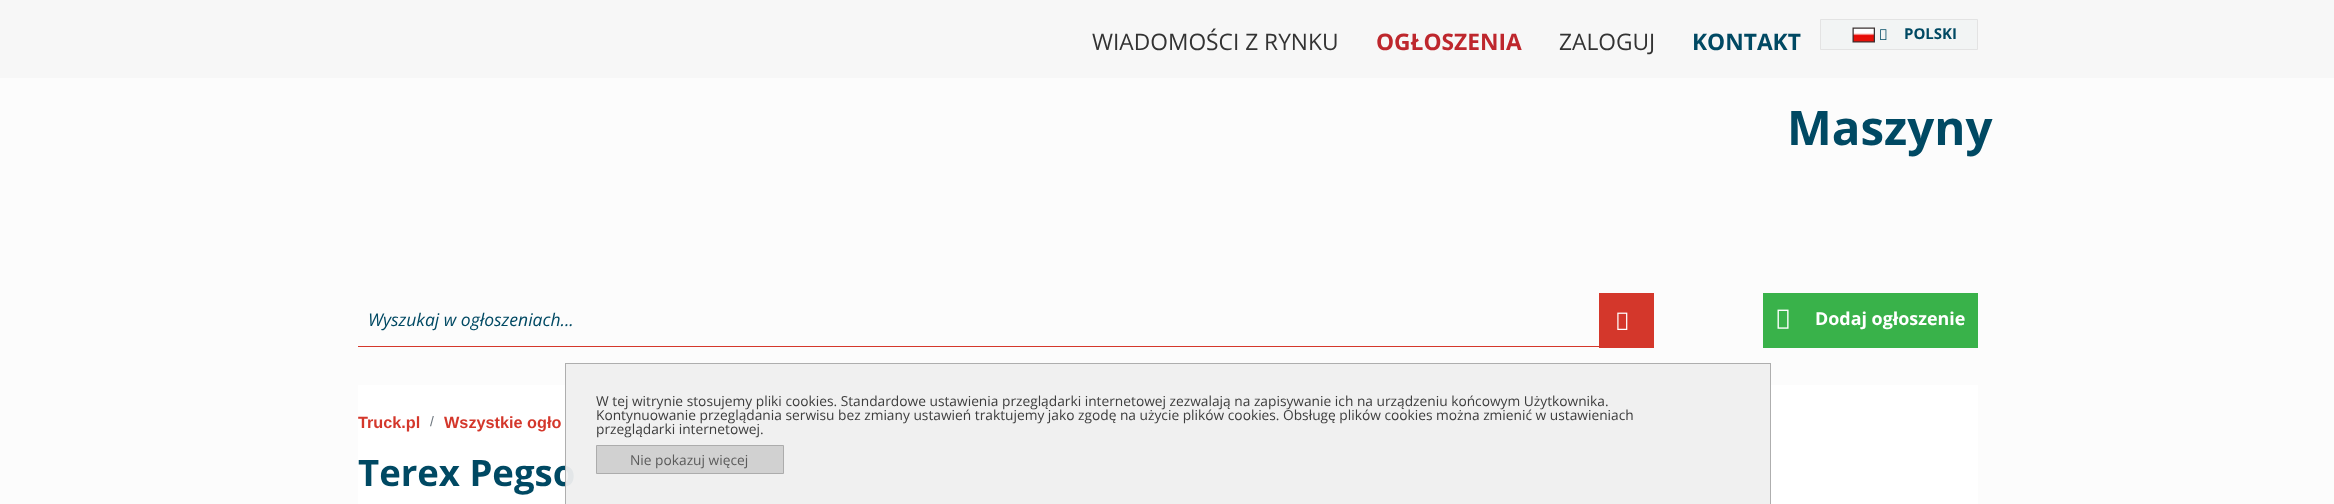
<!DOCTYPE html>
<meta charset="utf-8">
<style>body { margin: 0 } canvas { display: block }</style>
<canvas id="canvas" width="2334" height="504"></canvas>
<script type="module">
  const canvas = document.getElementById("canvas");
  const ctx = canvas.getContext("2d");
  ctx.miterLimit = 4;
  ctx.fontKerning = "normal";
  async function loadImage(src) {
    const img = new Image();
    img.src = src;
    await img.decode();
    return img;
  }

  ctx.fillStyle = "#fcfcfc";
  ctx.fillRect(0, 0, 2334, 504);
  ctx.fillStyle = "#f7f7f7";
  ctx.fillRect(0, 0, 2334, 78);
  ctx.font = "22.75px Open Sans";
  ctx.fillStyle = "#333333";
  ctx.fillText("WIADOMOŚCI Z RYNKU", 1092, 50);
  ctx.font = "bold 22.75px Open Sans";
  ctx.fillStyle = "#be272d";
  ctx.fillText("OGŁOSZENIA", 1376, 50);
  ctx.font = "22.75px Open Sans";
  ctx.fillStyle = "#333333";
  ctx.fillText("ZALOGUJ", 1559, 50);
  ctx.font = "bold 22.75px Open Sans";
  ctx.fillStyle = "#004963";
  ctx.fillText("KONTAKT", 1692, 50);
  ctx.fillStyle = "#f2f4f4";
  ctx.beginPath();
  ctx.rect(1820.5, 19.5, 157, 30);
  ctx.fill();
  ctx.strokeStyle = "#e3e3e3";
  ctx.stroke();
  ctx.drawImage(await loadImage("img1.png"), 1852, 27, 23, 16);
  ctx.drawImage(await loadImage("img2.png"), 1880, 29, 7, 11);
  ctx.font = "bold 15px Open Sans";
  ctx.fillStyle = "#004963";
  ctx.fillText("POLSKI", 1904, 39);
  ctx.font = "bold 47.5px Open Sans";
  ctx.fillText("Maszyny", 1787, 145);
  ctx.fillStyle = "#d4372b";
  ctx.fillRect(358, 346, 1241, 1);
  ctx.font = "italic 17.5px Open Sans";
  ctx.fillStyle = "#004963";
  ctx.fillText("Wyszukaj w ogłoszeniach...", 368, 326);
  ctx.fillStyle = "#d4372b";
  ctx.fillRect(1599, 293, 55, 55);
  ctx.drawImage(await loadImage("img3.png"), 1617, 312, 11, 18);
  ctx.fillStyle = "#39b24a";
  ctx.fillRect(1763, 293, 215, 55);
  ctx.drawImage(await loadImage("img4.png"), 1777, 309, 12, 20);
  ctx.font = "bold 17.9px Open Sans";
  ctx.fillStyle = "#ffffff";
  ctx.fillText("Dodaj ogłoszenie", 1815, 325);
  ctx.fillRect(358, 385, 1620, 119);
  ctx.save();
  ctx.beginPath();
  ctx.rect(358, 385, 1620, 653);
  ctx.clip();
  ctx.font = "bold 16.25px Liberation Sans";
  ctx.fillStyle = "#d4372b";
  ctx.fillText("Truck.pl", 358, 428);
  ctx.restore();
  ctx.font = "13.75px Liberation Sans";
  ctx.fillStyle = "#6c757d";
  ctx.fillText("/", 430, 426);
  ctx.font = "bold 16.25px Liberation Sans";
  ctx.fillStyle = "#d4372b";
  ctx.fillText("Wszystkie ogło", 444, 428);
  ctx.font = "bold 36.5px Open Sans";
  ctx.fillStyle = "#004963";
  ctx.fillText("Terex Pegso", 358, 486);
  ctx.fillStyle = "rgba(239, 239, 239, 0.95)";
  ctx.fillRect(565, 363, 1206, 141);
  ctx.strokeStyle = "rgba(170, 170, 170, 0.95)";
  ctx.strokeRect(565.5, 363.5, 1205, 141);
  ctx.font = "13.75px Open Sans";
  ctx.fillStyle = "#3d3d3d";
  ctx.fillText("W tej witrynie stosujemy pliki cookies. Standardowe ustawienia przeglądarki internetowej zezwalają na zapisywanie ich na urządzeniu końcowym Użytkownika.", 596, 406);
  ctx.fillText("Kontynuowanie przeglądania serwisu bez zmiany ustawień traktujemy jako zgodę na użycie plików cookies.", 596, 420);
  ctx.fillText("Obsługę plików cookies można zmienić w ustawieniach", 1283, 420);
  ctx.fillText("przeglądarki internetowej.", 596, 434);
  ctx.fillStyle = "rgba(207, 207, 207, 0.95)";
  ctx.beginPath();
  ctx.rect(596.5, 445.5, 187, 28);
  ctx.fill();
  ctx.strokeStyle = "#acacac";
  ctx.stroke();
  ctx.fillStyle = "#5b5b5b";
  ctx.fillText("Nie pokazuj więcej", 630, 465);
</script>
